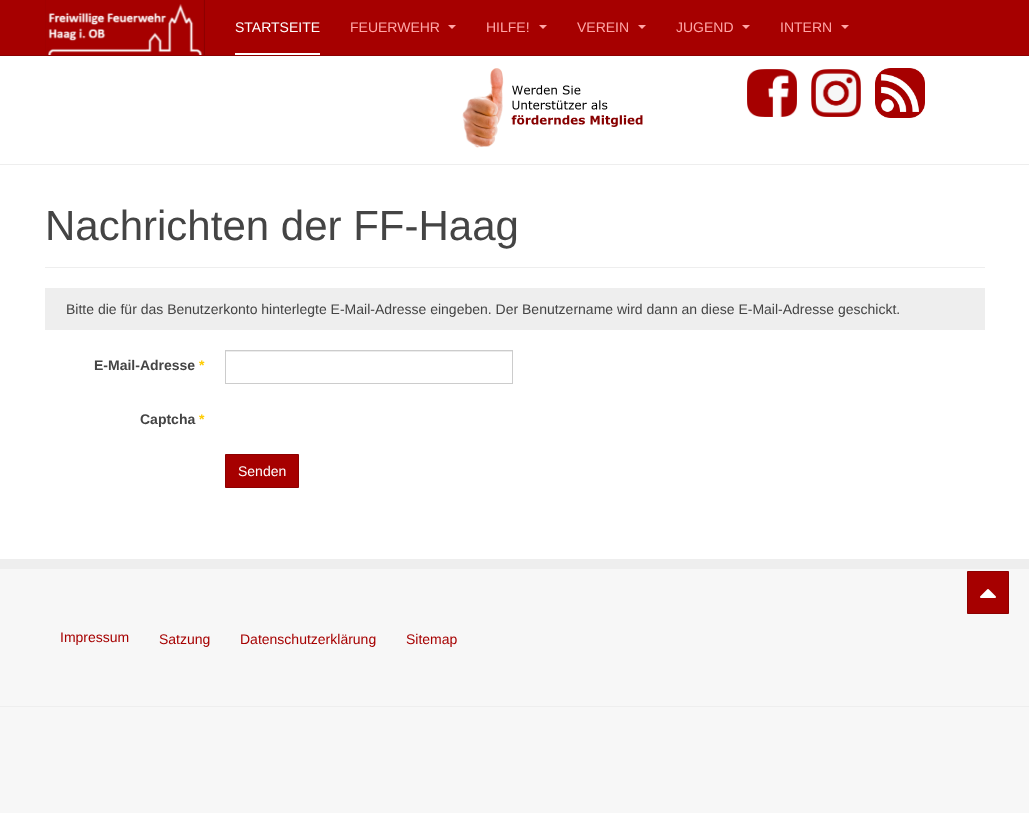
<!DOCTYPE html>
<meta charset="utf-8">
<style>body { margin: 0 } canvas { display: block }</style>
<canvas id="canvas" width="1029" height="813"></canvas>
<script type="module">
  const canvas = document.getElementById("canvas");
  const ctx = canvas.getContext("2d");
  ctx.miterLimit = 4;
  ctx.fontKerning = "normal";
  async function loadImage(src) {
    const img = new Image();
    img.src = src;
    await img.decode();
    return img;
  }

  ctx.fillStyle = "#ffffff";
  ctx.fillRect(0, 0, 1029, 813);
  ctx.fillStyle = "#a60000";
  ctx.fillRect(0, 0, 1029, 55);
  ctx.fillStyle = "#8d0000";
  ctx.fillRect(0, 55, 1029, 1);
  ctx.fillRect(45, 0, 160, 55);
  ctx.drawImage(await loadImage("img1.png"), 45, 0, 159, 55);
  ctx.fillStyle = "#ffffff";
  ctx.fillRect(235, 53, 85, 2);
  ctx.font = "14px Liberation Sans";
  ctx.fillText("STARTSEITE", 235, 32);
  ctx.fillStyle = "#ffa6a6";
  ctx.fillText("FEUERWEHR", 350, 32);
  ctx.beginPath();
  ctx.moveTo(448, 25);
  ctx.lineTo(456, 25);
  ctx.lineTo(452, 29);
  ctx.closePath();
  ctx.fill();
  ctx.fillText("HILFE!", 486, 32);
  ctx.beginPath();
  ctx.moveTo(539, 25);
  ctx.lineTo(547, 25);
  ctx.lineTo(543, 29);
  ctx.closePath();
  ctx.fill();
  ctx.fillText("VEREIN", 577, 32);
  ctx.beginPath();
  ctx.moveTo(638, 25);
  ctx.lineTo(646, 25);
  ctx.lineTo(642, 29);
  ctx.closePath();
  ctx.fill();
  ctx.fillText("JUGEND", 676, 32);
  ctx.beginPath();
  ctx.moveTo(742, 25);
  ctx.lineTo(750, 25);
  ctx.lineTo(746, 29);
  ctx.closePath();
  ctx.fill();
  ctx.fillText("INTERN", 780, 32);
  ctx.beginPath();
  ctx.moveTo(841, 25);
  ctx.lineTo(849, 25);
  ctx.lineTo(845, 29);
  ctx.closePath();
  ctx.fill();
  ctx.fillStyle = "#eeeeee";
  ctx.fillRect(0, 164, 1029, 1);
  ctx.drawImage(await loadImage("img2.png"), 462, 68, 181, 80);
  ctx.drawImage(await loadImage("img3.png"), 747, 69, 50, 48);
  ctx.drawImage(await loadImage("img4.png"), 811, 69, 50, 48);
  ctx.drawImage(await loadImage("img5.png"), 875, 68, 50, 50);
  ctx.fillRect(45, 267, 940, 1);
  ctx.font = "42px Liberation Sans";
  ctx.fillStyle = "#444444";
  ctx.fillText("Nachrichten der FF-Haag", 45, 240);
  ctx.fillStyle = "#eeeeee";
  ctx.fillRect(45, 288, 940, 42);
  ctx.font = "14px Liberation Sans";
  ctx.fillStyle = "#444444";
  ctx.fillText("Bitte die für das Benutzerkonto hinterlegte E-Mail-Adresse eingeben. Der Benutzername wird dann an diese E-Mail-Adresse geschickt.", 66, 314);
  ctx.font = "bold 14px Liberation Sans";
  ctx.fillText("E-Mail-Adresse", 94, 370);
  ctx.fillStyle = "#ffcc00";
  ctx.fillText("*", 199, 370);
  ctx.fillStyle = "#ececec";
  ctx.fillRect(226, 351, 286, 1);
  ctx.strokeStyle = "#cccccc";
  ctx.strokeRect(225.5, 350.5, 287, 33);
  ctx.fillStyle = "#444444";
  ctx.fillText("Captcha", 140, 424);
  ctx.fillStyle = "#ffcc00";
  ctx.fillText("*", 199, 424);
  ctx.fillStyle = "#a60000";
  ctx.beginPath();
  ctx.rect(225.5, 454.5, 73, 33);
  ctx.fill();
  ctx.strokeStyle = "#8d0000";
  ctx.stroke();
  ctx.font = "14px Liberation Sans";
  ctx.fillStyle = "#ffffff";
  ctx.fillText("Senden", 238, 476);
  ctx.fillStyle = "#eeeeee";
  ctx.fillRect(0, 559, 1029, 10);
  ctx.fillStyle = "#f7f7f7";
  ctx.fillRect(0, 569, 1029, 244);
  ctx.fillStyle = "#a60000";
  ctx.beginPath();
  ctx.rect(967.5, 571.5, 41, 42);
  ctx.fill();
  ctx.stroke();
  ctx.drawImage(await loadImage("img6.png"), 980, 589, 16, 9);
  ctx.fillText("Impressum", 60, 642);
  ctx.fillText("Satzung", 159, 644);
  ctx.fillText("Datenschutzerklärung", 240, 644);
  ctx.fillText("Sitemap", 406, 644);
  ctx.fillStyle = "#eeeeee";
  ctx.fillRect(0, 706, 1029, 1);
</script>
